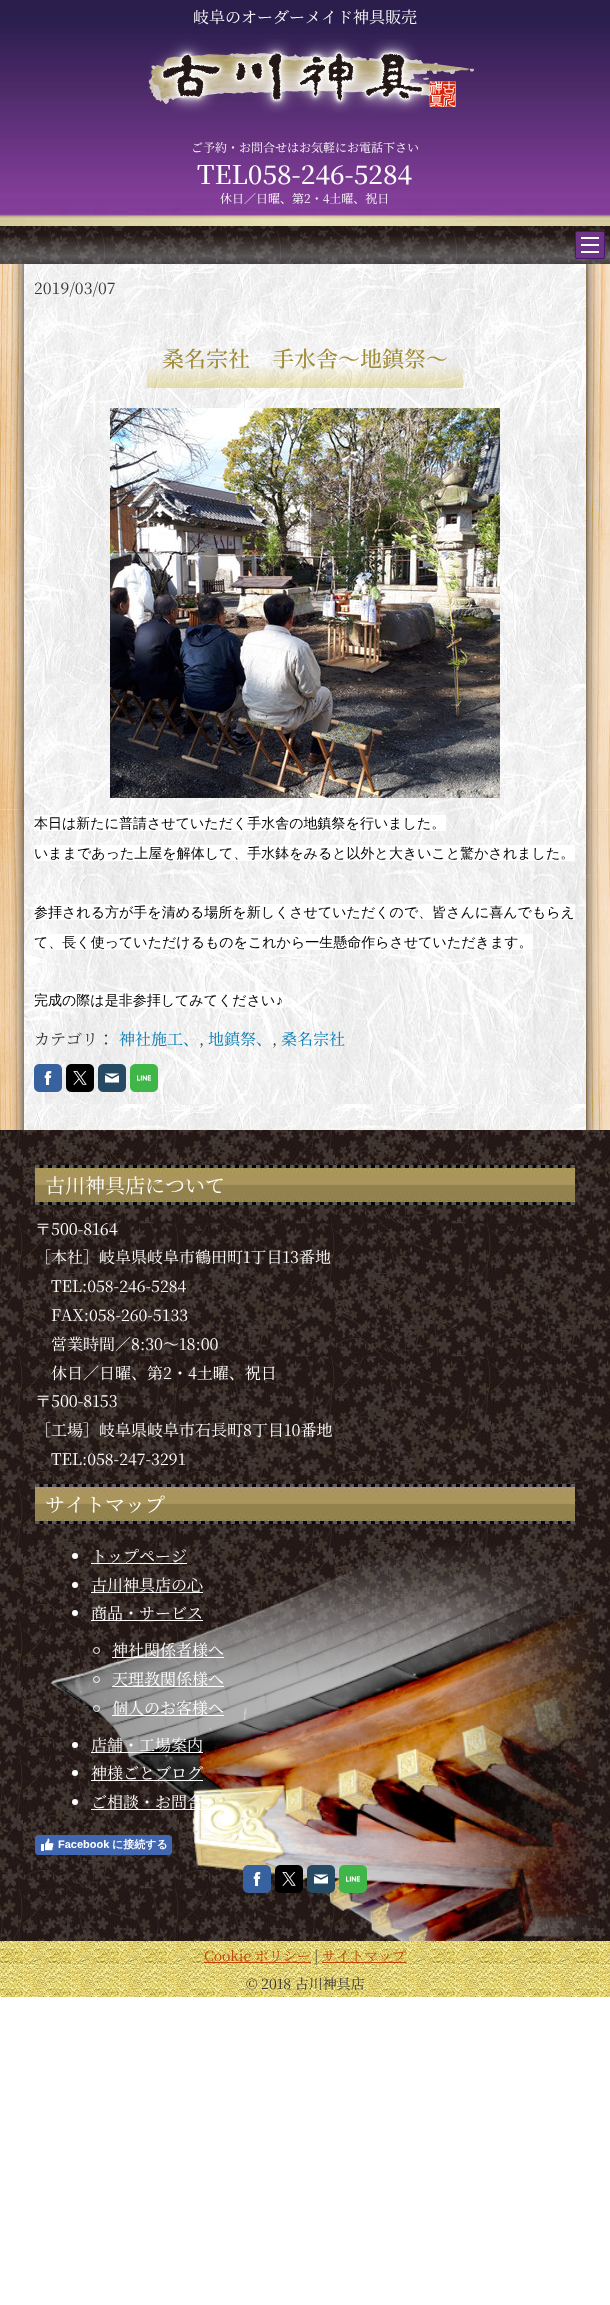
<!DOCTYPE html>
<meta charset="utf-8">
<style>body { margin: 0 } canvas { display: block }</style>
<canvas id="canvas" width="610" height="2305"></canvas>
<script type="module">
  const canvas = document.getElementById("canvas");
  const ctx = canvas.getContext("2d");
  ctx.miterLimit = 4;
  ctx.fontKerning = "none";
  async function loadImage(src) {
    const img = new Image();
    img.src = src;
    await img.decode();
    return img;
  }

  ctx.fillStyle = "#ffffff";
  ctx.fillRect(0, 0, 610, 2305);
  ctx.drawImage(await loadImage("img1.png"), 0, 264, 610, 866);
  ctx.drawImage(await loadImage("img2.png"), 0, 0, 610, 226);
  ctx.font = "16px Noto Serif JP";
  ctx.fillText("岐阜のオーダーメイド神具販売", 193, 23);
  ctx.drawImage(await loadImage("img3.png"), 148, 39, 326, 74);
  ctx.font = "12px Noto Serif JP";
  ctx.fillText("ご予約・お問合せはお気軽にお電話下さい", 191, 152);
  ctx.font = "500 26px Noto Serif JP";
  ctx.fillText("TEL058-246-5284", 197, 184);
  ctx.font = "12px Noto Serif JP";
  ctx.fillText("休日／日曜、第2・4土曜、祝日", 220, 203);
  ctx.drawImage(await loadImage("img4.png"), 0, 226, 610, 38);
  ctx.fillStyle = "#6c3586";
  ctx.beginPath();
  ctx.roundRect(575.5, 231.5, 29, 27, 1.5);
  ctx.fill();
  ctx.strokeStyle = "#4e136f";
  ctx.stroke();
  ctx.fillStyle = "#ffffff";
  ctx.fillRect(581, 237, 18, 2);
  ctx.fillRect(581, 244, 18, 2);
  ctx.fillRect(581, 251, 18, 2);
  ctx.drawImage(await loadImage("img5.png"), 11, 264, 588, 866);
  ctx.drawImage(await loadImage("img6.png"), 24, 264, 562, 866);
  ctx.font = "16px Noto Serif JP";
  ctx.fillStyle = "#333333";
  ctx.fillText("2019/03/07", 34, 294);
  ctx.drawImage(await loadImage("img7.png"), 147, 365, 316, 23);
  ctx.font = "500 22px Noto Serif JP";
  ctx.fillStyle = "#a08b35";
  ctx.fillText("桑名宗社　手水舎～地鎮祭～", 162, 367);
  ctx.drawImage(await loadImage("img8.png"), 110, 408, 390, 390);
  ctx.fillStyle = "#ffffff";
  ctx.fillRect(34, 815, 412, 16);
  ctx.font = "500 14px WenQuanYi Zen Hei";
  ctx.fillStyle = "#000000";
  ctx.fillText("本日は新たに普請させていただく手水舎の地鎮祭を行いました。", 34, 828);
  ctx.fillStyle = "#ffffff";
  ctx.fillRect(34, 845, 541, 16);
  ctx.fillStyle = "#000000";
  ctx.fillText("いままであった上屋を解体して、手水鉢をみると以外と大きいこと驚かされました。", 34, 858);
  ctx.fillStyle = "#ffffff";
  ctx.fillRect(34, 904, 541, 16);
  ctx.fillStyle = "#000000";
  ctx.fillText("参拝される方が手を清める場所を新しくさせていただくので、皆さんに喜んでもらえ", 34, 917);
  ctx.fillStyle = "#ffffff";
  ctx.fillRect(34, 934, 499, 16);
  ctx.fillStyle = "#000000";
  ctx.fillText("て、長く使っていただけるものをこれから一生懸命作らさせていただきます。", 34, 947);
  ctx.fillStyle = "#ffffff";
  ctx.fillRect(34, 992, 249, 16);
  ctx.fillStyle = "#000000";
  ctx.fillText("完成の際は是非参拝してみてください", 34, 1005);
  ctx.font = "14px Liberation Sans";
  ctx.fillText("♪", 276, 1005);
  ctx.font = "16px Noto Serif JP";
  ctx.fillStyle = "#333333";
  ctx.fillText("カテゴリ：", 34, 1045);
  ctx.fillStyle = "#047ab3";
  ctx.fillText("神社施工、", 119, 1045);
  ctx.fillStyle = "#333333";
  ctx.fillText(",", 199, 1045);
  ctx.fillStyle = "#047ab3";
  ctx.fillText("地鎮祭、", 208, 1045);
  ctx.fillStyle = "#333333";
  ctx.fillText(",", 272, 1045);
  ctx.fillStyle = "#047ab3";
  ctx.fillText("桑名宗社", 281, 1045);
  ctx.drawImage(await loadImage("img9.png"), 34, 1064, 28, 28);
  ctx.drawImage(await loadImage("img10.png"), 44, 1071, 8, 14);
  ctx.drawImage(await loadImage("img11.png"), 66, 1064, 28, 28);
  ctx.drawImage(await loadImage("img12.png"), 73, 1071, 14, 14);
  ctx.drawImage(await loadImage("img13.png"), 98, 1064, 28, 28);
  ctx.drawImage(await loadImage("img14.png"), 105, 1073, 14, 10);
  ctx.drawImage(await loadImage("img15.png"), 130, 1064, 28, 28);
  ctx.drawImage(await loadImage("img16.png"), 137, 1075, 14, 6);
  ctx.drawImage(await loadImage("img17.png"), 0, 1130, 610, 811);
  ctx.drawImage(await loadImage("img18.png"), 51, 1546, 549, 395);
  ctx.drawImage(await loadImage("img19.png"), 35, 1165, 540, 40);
  ctx.font = "20px Noto Serif JP";
  ctx.fillStyle = "#ffffff";
  ctx.fillText("古川神具店について", 45, 1193);
  ctx.font = "16px Noto Serif JP";
  ctx.fillText("〒500-8164", 35, 1235);
  ctx.fillText("［本社］岐阜県岐阜市鶴田町1丁目13番地", 35, 1263);
  ctx.fillText("TEL:058-246-5284", 51, 1292);
  ctx.fillText("FAX:058-260-5133", 51, 1321);
  ctx.fillText("営業時間／8:30～18:00", 51, 1350);
  ctx.fillText("休日／日曜、第2・4土曜、祝日", 51, 1379);
  ctx.fillText("〒500-8153", 35, 1407);
  ctx.fillText("［工場］岐阜県岐阜市石長町8丁目10番地", 35, 1436);
  ctx.fillText("TEL:058-247-3291", 51, 1465);
  ctx.drawImage(await loadImage("img19.png"), 35, 1484, 540, 40);
  ctx.font = "20px Noto Serif JP";
  ctx.fillText("サイトマップ", 45, 1512);
  ctx.beginPath();
  ctx.arc(75, 1556, 3, 0, Math.PI * 2);
  ctx.fill();
  ctx.font = "16px Noto Serif JP";
  ctx.fillText("トップページ", 91, 1562);
  ctx.fillRect(91, 1563, 96, 1);
  ctx.beginPath();
  ctx.arc(75, 1585, 3, 0, Math.PI * 2);
  ctx.fill();
  ctx.fillRect(91, 1592, 112, 1);
  ctx.fillText("古川神具店の心", 91, 1591);
  ctx.beginPath();
  ctx.arc(75, 1613, 3, 0, Math.PI * 2);
  ctx.fill();
  ctx.fillRect(91, 1620, 112, 1);
  ctx.fillText("商品・サービス", 91, 1619);
  ctx.beginPath();
  ctx.arc(96.5, 1650.5, 3, 0, Math.PI * 2);
  ctx.strokeStyle = "#ffffff";
  ctx.stroke();
  ctx.fillRect(112, 1657, 112, 1);
  ctx.fillText("神社関係者様へ", 112, 1656);
  ctx.beginPath();
  ctx.arc(96.5, 1679.5, 3, 0, Math.PI * 2);
  ctx.stroke();
  ctx.fillRect(112, 1686, 112, 1);
  ctx.fillText("天理教関係様へ", 112, 1685);
  ctx.beginPath();
  ctx.arc(96.5, 1708.5, 3, 0, Math.PI * 2);
  ctx.stroke();
  ctx.fillRect(112, 1715, 112, 1);
  ctx.fillText("個人のお客様へ", 112, 1714);
  ctx.beginPath();
  ctx.arc(75, 1745, 3, 0, Math.PI * 2);
  ctx.fill();
  ctx.fillRect(91, 1752, 112, 1);
  ctx.fillText("店舗・工場案内", 91, 1751);
  ctx.beginPath();
  ctx.arc(75, 1773, 3, 0, Math.PI * 2);
  ctx.fill();
  ctx.fillRect(91, 1780, 112, 1);
  ctx.fillText("神様ごとブログ", 91, 1779);
  ctx.beginPath();
  ctx.arc(75, 1802, 3, 0, Math.PI * 2);
  ctx.fill();
  ctx.fillRect(91, 1809, 128, 1);
  ctx.fillText("ご相談・お問合", 91, 1808);
  ctx.fillStyle = "#4267b2";
  ctx.beginPath();
  ctx.roundRect(35.5, 1835.5, 136, 19, 2.5);
  ctx.fill();
  ctx.strokeStyle = "#4267b2";
  ctx.stroke();
  ctx.drawImage(await loadImage("img20.png"), 41, 1838, 13, 13);
  ctx.font = "bold 11px Liberation Sans";
  ctx.fillStyle = "#ffffff";
  ctx.fillText("Facebook", 58, 1848);
  ctx.font = "bold 11px WenQuanYi Zen Hei";
  ctx.fillText("に接続する", 112, 1848);
  ctx.drawImage(await loadImage("img21.png"), 243, 1865, 28, 28);
  ctx.drawImage(await loadImage("img10.png"), 253, 1872, 8, 14);
  ctx.drawImage(await loadImage("img22.png"), 275, 1865, 28, 28);
  ctx.drawImage(await loadImage("img12.png"), 282, 1872, 14, 14);
  ctx.drawImage(await loadImage("img23.png"), 307, 1865, 28, 28);
  ctx.drawImage(await loadImage("img14.png"), 314, 1874, 14, 10);
  ctx.drawImage(await loadImage("img24.png"), 339, 1865, 28, 28);
  ctx.drawImage(await loadImage("img16.png"), 346, 1876, 14, 6);
  ctx.drawImage(await loadImage("img25.png"), 0, 1941, 610, 56);
  ctx.font = "14px Noto Serif JP";
  ctx.fillStyle = "#c34300";
  ctx.fillText("Cookie ポリシー", 204, 1961);
  ctx.fillRect(204, 1962, 107, 1);
  ctx.fillStyle = "#333333";
  ctx.fillText("|", 314, 1961);
  ctx.fillStyle = "#c34300";
  ctx.fillText("サイトマップ", 322, 1961);
  ctx.fillRect(322, 1962, 84, 1);
  ctx.fillStyle = "#333333";
  ctx.fillText("© 2018 古川神具店", 246, 1989);
</script>
